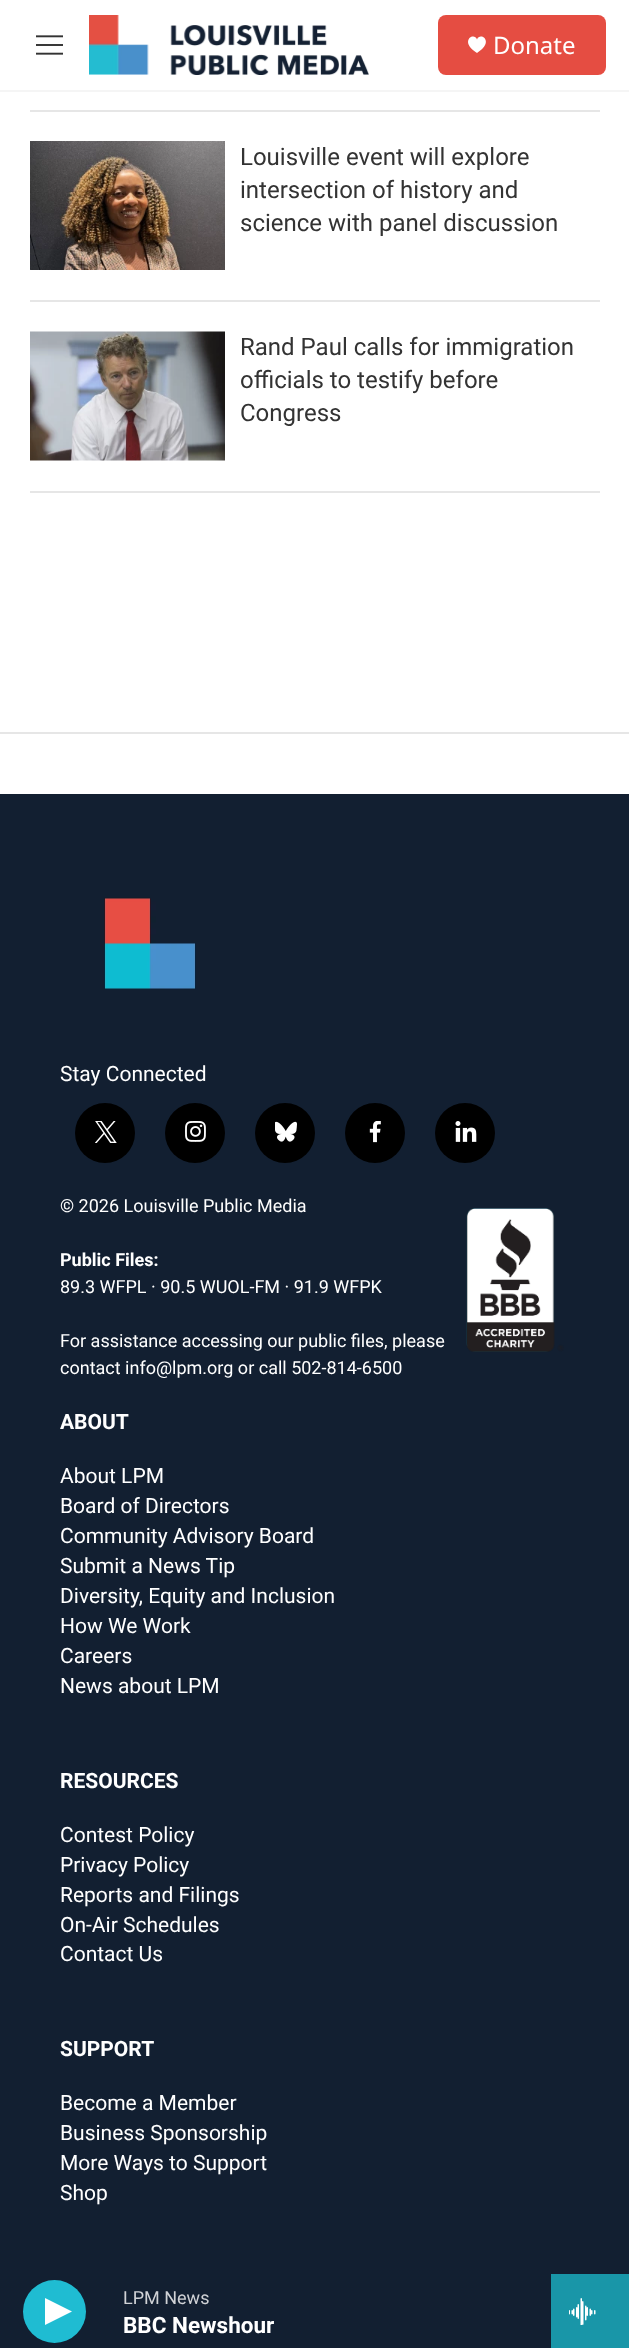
<!DOCTYPE html>
<meta charset="utf-8">
<style>body { margin: 0 } canvas { display: block }</style>
<canvas id="canvas" width="629" height="2348"></canvas>
<script type="module">
  const canvas = document.getElementById("canvas");
  const ctx = canvas.getContext("2d");
  ctx.miterLimit = 4;
  ctx.fontKerning = "normal";
  async function loadImage(src) {
    const img = new Image();
    img.src = src;
    await img.decode();
    return img;
  }

  ctx.fillStyle = "#ffffff";
  ctx.fillRect(0, 0, 629, 2348);
  ctx.fillStyle = "#f5f5f5";
  ctx.fillRect(0, 90, 629, 2);
  ctx.drawImage(await loadImage("img1.png"), 36, 35, 27, 20);
  ctx.drawImage(await loadImage("img2.png"), 89, 15, 280, 60);
  ctx.fillStyle = "#e54d42";
  ctx.beginPath();
  ctx.roundRect(438, 15, 168, 60, 8);
  ctx.fill();
  ctx.fillStyle = "#ffffff";
  ctx.beginPath();
  ctx.moveTo(477, 39.5);
  ctx.bezierCurveTo(474, 31.5, 458.5, 41.5, 477, 53);
  ctx.bezierCurveTo(495.5, 41.5, 480, 31.5, 477, 39.5);
  ctx.closePath();
  ctx.fill();
  ctx.font = "24px Noto Sans";
  ctx.fillText("Donate", 493, 54);
  ctx.fillStyle = "#121f31";
  ctx.fillRect(0, 794, 629, 1554);
  ctx.fillStyle = "#1fbcd2";
  ctx.beginPath();
  ctx.arc(54.5, 2311.5, 31.5, 0, Math.PI * 2);
  ctx.fill();
  ctx.fillStyle = "#ffffff";
  ctx.beginPath();
  ctx.moveTo(45, 2298);
  ctx.lineTo(72, 2311.5);
  ctx.lineTo(45, 2325);
  ctx.closePath();
  ctx.fill();
  ctx.font = "18px Roboto";
  ctx.fillStyle = "#d0d2d6";
  ctx.fillText("LPM News", 123, 2304);
  ctx.font = "bold 22.5px Roboto";
  ctx.fillStyle = "#ffffff";
  ctx.fillText("BBC Newshour", 123, 2333);
  ctx.fillStyle = "#1996a8";
  ctx.fillRect(551, 2274, 78, 74);
  ctx.drawImage(await loadImage("img3.png"), 569, 2298, 27, 27);
  ctx.fillStyle = "#e6e6e6";
  ctx.fillRect(30, 110, 570, 2);
  ctx.fillRect(30, 300, 570, 2);
  ctx.drawImage(await loadImage("img4.png"), 30, 141, 195, 129);
  ctx.font = "24px Roboto";
  ctx.fillStyle = "#333333";
  ctx.fillText("Louisville event will explore", 240, 165);
  ctx.fillText("intersection of history and", 240, 198);
  ctx.fillText("science with panel discussion", 240, 231);
  ctx.fillStyle = "#e6e6e6";
  ctx.fillRect(30, 491, 570, 2);
  ctx.drawImage(await loadImage("img5.png"), 30, 331, 195, 130);
  ctx.fillStyle = "#333333";
  ctx.fillText("Rand Paul calls for immigration", 240, 355);
  ctx.fillText("officials to testify before", 240, 388);
  ctx.fillText("Congress", 240, 421);
  ctx.fillStyle = "#e6e6e6";
  ctx.fillRect(0, 732, 629, 2);
  ctx.drawImage(await loadImage("img6.png"), 104, 897, 92, 93);
  ctx.font = "21px Roboto";
  ctx.fillStyle = "#ffffff";
  ctx.fillText("Stay Connected", 60, 1081);
  ctx.fillStyle = "#000000";
  ctx.beginPath();
  ctx.arc(105, 1133, 30, 0, Math.PI * 2);
  ctx.fill();
  ctx.drawImage(await loadImage("img7.png"), 95, 1121, 22, 22);
  ctx.beginPath();
  ctx.arc(195, 1133, 30, 0, Math.PI * 2);
  ctx.fill();
  ctx.drawImage(await loadImage("img8.png"), 185, 1121, 21, 21);
  ctx.beginPath();
  ctx.arc(285, 1133, 30, 0, Math.PI * 2);
  ctx.fill();
  ctx.drawImage(await loadImage("img9.png"), 275, 1121, 22, 21);
  ctx.beginPath();
  ctx.arc(375, 1133, 30, 0, Math.PI * 2);
  ctx.fill();
  ctx.drawImage(await loadImage("img10.png"), 369, 1121, 12, 22);
  ctx.beginPath();
  ctx.arc(465, 1133, 30, 0, Math.PI * 2);
  ctx.fill();
  ctx.drawImage(await loadImage("img11.png"), 455, 1121, 22, 21);
  ctx.font = "18px Roboto";
  ctx.fillStyle = "#ffffff";
  ctx.fillText("© 2026 Louisville Public Media", 60, 1212);
  ctx.font = "bold 18px Roboto";
  ctx.fillText("Public Files:", 60, 1266);
  ctx.drawImage(await loadImage("img12.png"), 466, 1208, 98, 144);
  ctx.font = "18px Roboto";
  ctx.fillText("89.3 WFPL · 90.5 WUOL-FM · 91.9 WFPK", 60, 1293);
  ctx.fillText("For assistance accessing our public files, please", 60, 1347);
  ctx.fillText("contact info@lpm.org or call 502-814-6500", 60, 1374);
  ctx.font = "bold 21px Roboto";
  ctx.fillText("ABOUT", 60, 1429);
  ctx.font = "21px Roboto";
  ctx.fillText("About LPM", 60, 1483);
  ctx.fillText("Board of Directors", 60, 1513);
  ctx.fillText("Community Advisory Board", 60, 1543);
  ctx.fillText("Submit a News Tip", 60, 1573);
  ctx.fillText("Diversity, Equity and Inclusion", 60, 1603);
  ctx.fillText("How We Work", 60, 1633);
  ctx.fillText("Careers", 60, 1663);
  ctx.fillText("News about LPM", 60, 1693);
  ctx.font = "bold 21px Roboto";
  ctx.fillText("RESOURCES", 60, 1788);
  ctx.font = "21px Roboto";
  ctx.fillText("Contest Policy", 60, 1842);
  ctx.fillText("Privacy Policy", 60, 1872);
  ctx.fillText("Reports and Filings", 60, 1902);
  ctx.fillText("On-Air Schedules", 60, 1932);
  ctx.fillText("Contact Us", 60, 1961);
  ctx.font = "bold 21px Roboto";
  ctx.fillText("SUPPORT", 60, 2056);
  ctx.font = "21px Roboto";
  ctx.fillText("Become a Member", 60, 2110);
  ctx.fillText("Business Sponsorship", 60, 2140);
  ctx.fillText("More Ways to Support", 60, 2170);
  ctx.fillText("Shop", 60, 2200);
</script>
